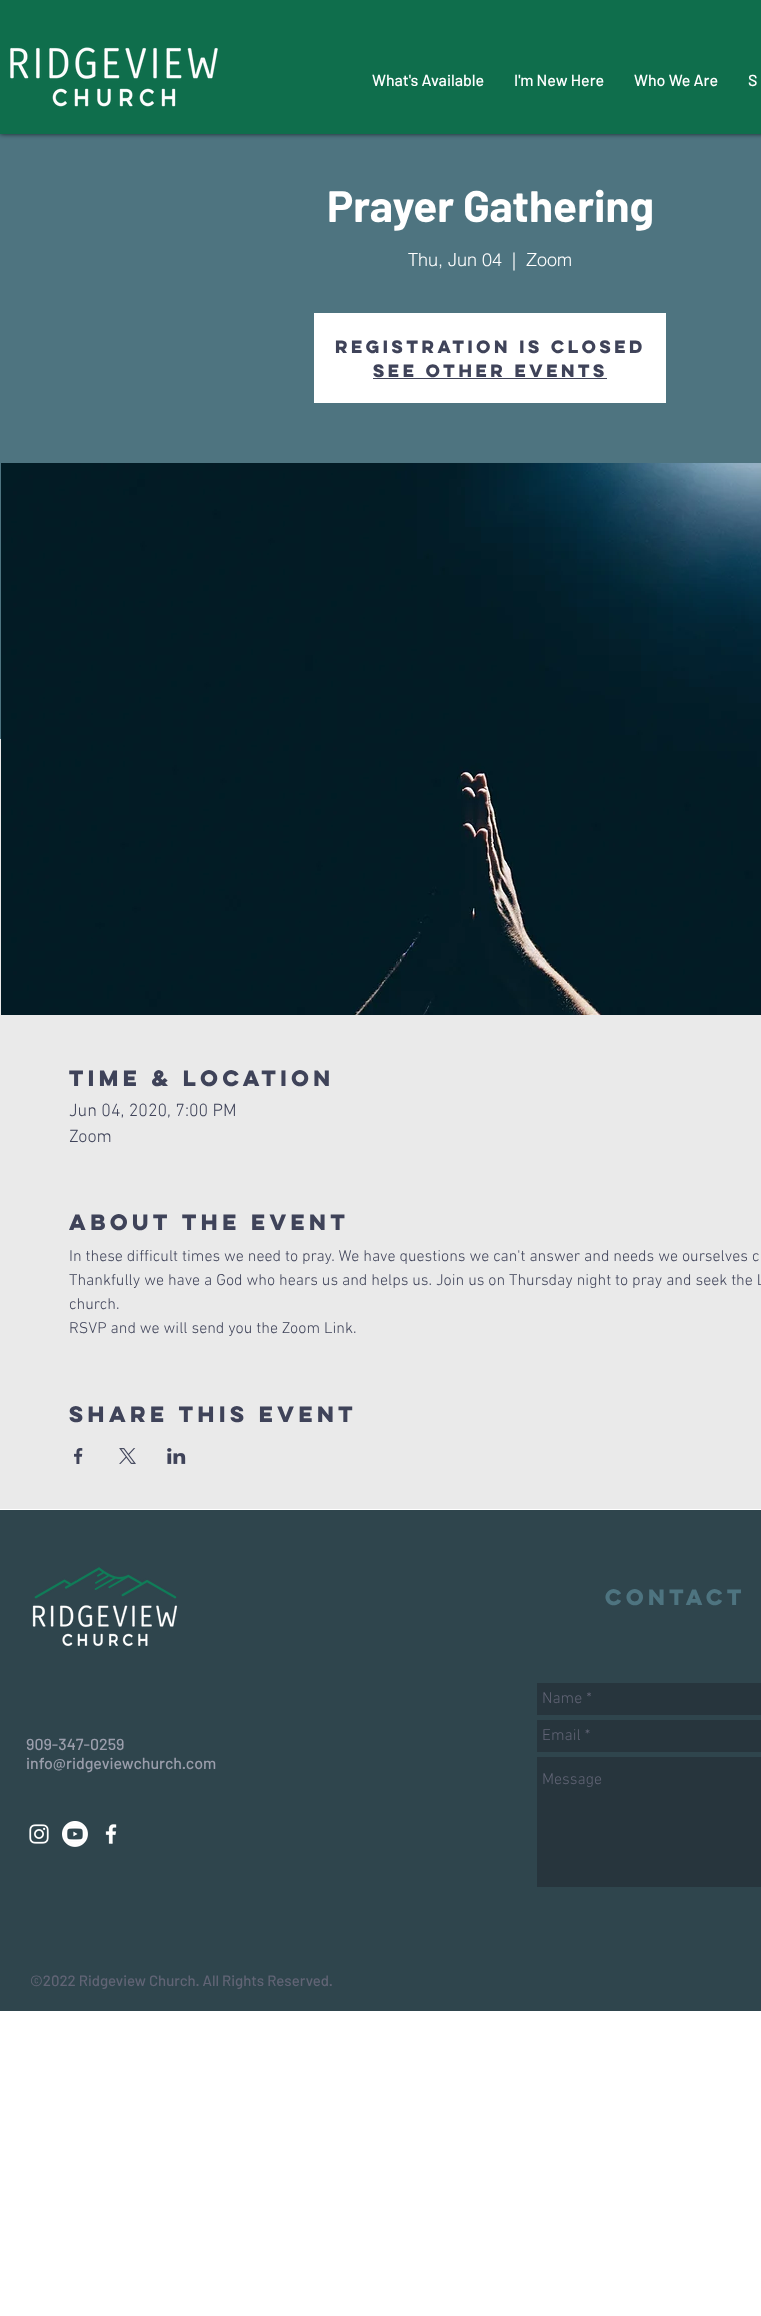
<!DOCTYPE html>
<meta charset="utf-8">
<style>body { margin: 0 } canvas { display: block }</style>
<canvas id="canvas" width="761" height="2316"></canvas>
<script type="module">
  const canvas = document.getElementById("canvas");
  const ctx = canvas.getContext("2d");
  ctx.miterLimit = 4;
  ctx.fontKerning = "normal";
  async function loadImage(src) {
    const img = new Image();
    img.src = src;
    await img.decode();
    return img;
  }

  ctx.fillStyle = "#ffffff";
  ctx.fillRect(0, 0, 761, 2316);
  ctx.fillStyle = "#4e7480";
  ctx.fillRect(0, 134, 761, 605);
  ctx.fillStyle = "rgba(0, 0, 0, 0.7)";
  ctx.filter = "blur(2.5px)";
  ctx.beginPath();
  ctx.rect(0, 0, 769, 134);
  ctx.fill();
  ctx.filter = "none";
  ctx.fillStyle = "#0f6e4c";
  ctx.fillRect(0, 0, 761, 134);
  ctx.drawImage(await loadImage("img1.png"), 10, 47, 208, 60);
  ctx.font = "500 16px Barlow";
  ctx.fillStyle = "#ffffff";
  ctx.fillText("What's Available", 372, 86);
  ctx.fillText("I'm New Here", 514, 86);
  ctx.fillText("Who We Are", 634, 86);
  ctx.fillText("S", 748, 86);
  ctx.font = "bold 44px Barlow";
  ctx.fillText("Prayer Gathering", 327, 222);
  ctx.font = "300 18px helvetica";
  ctx.fillText("Thu, Jun 04", 408, 266);
  ctx.fillText("|", 512, 266);
  ctx.fillText("Zoom", 526, 266);
  ctx.fillRect(314, 313, 352, 90);
  ctx.font = "bold 16px 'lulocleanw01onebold'";
  ctx.fillStyle = "#3f4359";
  ctx.fillText("Registration is Closed", 335, 353);
  ctx.fillText("See other events", 373, 377);
  ctx.fillRect(373, 378, 234, 1);
  ctx.fillStyle = "#eaeaea";
  ctx.fillRect(0, 739, 761, 770);
  ctx.drawImage(await loadImage("img2.png"), 1, 463, 760, 552);
  ctx.font = "bold 20px 'lulocleanw01onebold'";
  ctx.fillStyle = "#3f4359";
  ctx.fillText("Time & Location", 69, 1086);
  ctx.font = "300 18px 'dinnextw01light'";
  ctx.fillText("Jun 04, 2020, 7:00 PM", 69, 1116);
  ctx.fillText("Zoom", 69, 1142);
  ctx.font = "bold 20px 'lulocleanw01onebold'";
  ctx.fillText("About The Event", 69, 1230);
  ctx.font = "300 16px 'dinnextw01light'";
  ctx.fillText("In these difficult times we need to pray. We have questions we can't answer and needs we ourselves c", 69, 1261);
  ctx.fillText("Thankfully we have a God who hears us and helps us. Join us on Thursday night to pray and seek the L", 69, 1285);
  ctx.fillText("church.", 69, 1309);
  ctx.fillText("RSVP and we will send you the Zoom Link.", 69, 1333);
  ctx.font = "bold 20px 'lulocleanw01onebold'";
  ctx.fillText("Share this Event", 69, 1422);
  ctx.drawImage(await loadImage("img3.png"), 74, 1448, 9, 16);
  ctx.drawImage(await loadImage("img4.png"), 119, 1448, 17, 16);
  ctx.drawImage(await loadImage("img5.png"), 167, 1448, 19, 16);
  ctx.fillStyle = "#2f454d";
  ctx.fillRect(0, 1510, 761, 501);
  ctx.drawImage(await loadImage("img6.png"), 32, 1567, 146, 80);
  ctx.fillStyle = "#4e7480";
  ctx.fillText("Contact", 605, 1605);
  ctx.font = "500 16px Barlow";
  ctx.fillStyle = "#9b9eac";
  ctx.fillText("909-347-0259", 26, 1750);
  ctx.fillText("info@ridgeviewchurch.com", 26, 1769);
  ctx.fillStyle = "#27353d";
  ctx.fillRect(537, 1683, 224, 32);
  ctx.font = "300 16px 'dinnextw01light'";
  ctx.fillStyle = "#616475";
  ctx.fillText("Name *", 542, 1703);
  ctx.fillStyle = "#27353d";
  ctx.fillRect(537, 1720, 224, 32);
  ctx.fillStyle = "#616475";
  ctx.fillText("Email *", 542, 1740);
  ctx.fillStyle = "#27353d";
  ctx.fillRect(537, 1757, 224, 130);
  ctx.fillStyle = "#616475";
  ctx.fillText("Message", 542, 1784);
  ctx.drawImage(await loadImage("img7.png"), 29, 1824, 20, 20);
  ctx.drawImage(await loadImage("img8.png"), 62, 1821, 26, 26);
  ctx.drawImage(await loadImage("img9.png"), 105, 1824, 12, 20);
  ctx.font = "500 15px Barlow";
  ctx.fillText("©2022 Ridgeview Church. All Rights Reserved.", 30, 1986);
</script>
